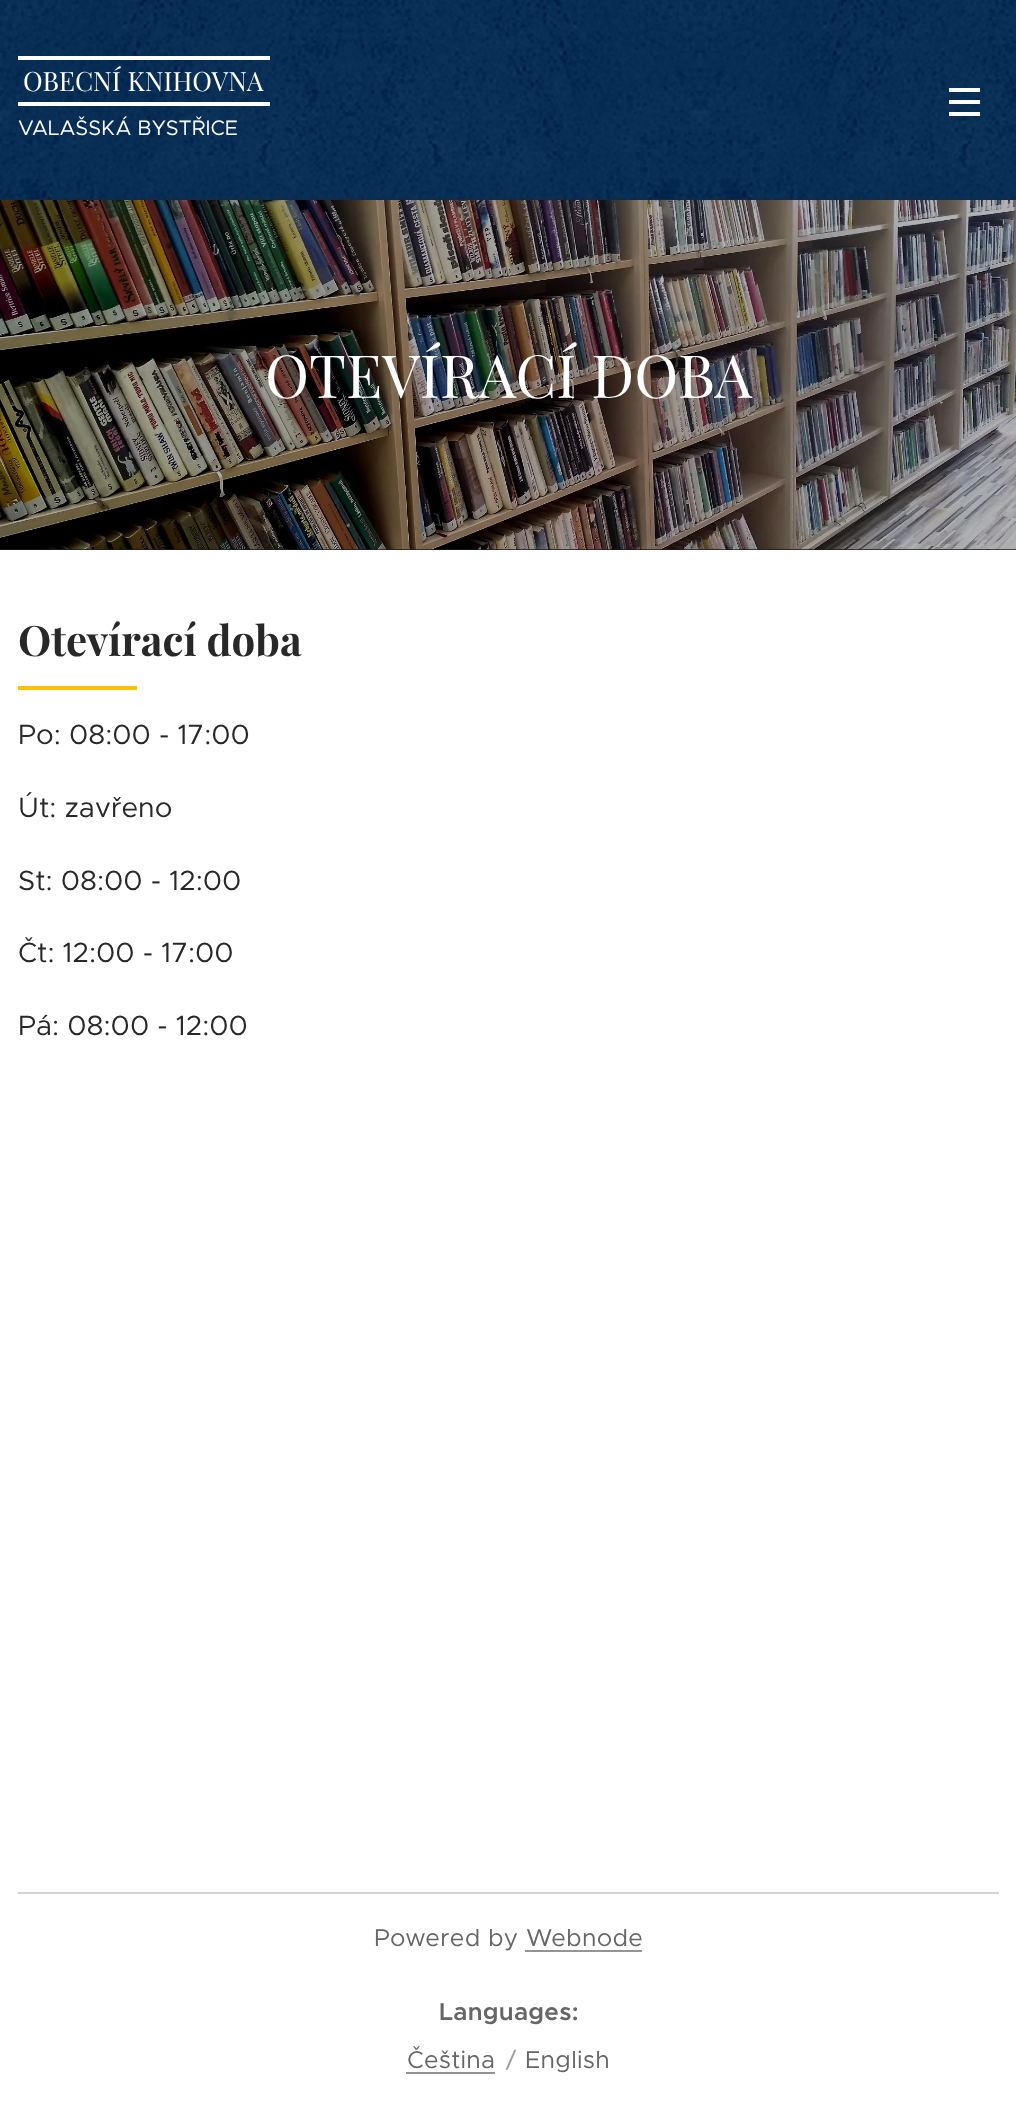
<!DOCTYPE html>
<meta charset="utf-8">
<style>body { margin: 0 } canvas { display: block }</style>
<canvas id="canvas" width="1016" height="2104"></canvas>
<script type="module">
  const canvas = document.getElementById("canvas");
  const ctx = canvas.getContext("2d");
  ctx.miterLimit = 4;
  ctx.fontKerning = "normal";
  async function loadImage(src) {
    const img = new Image();
    img.src = src;
    await img.decode();
    return img;
  }

  ctx.fillStyle = "#ffffff";
  ctx.fillRect(0, 0, 1016, 2104);
  ctx.fillStyle = "#272727";
  ctx.fillRect(0, 199, 1016, 1);
  ctx.drawImage(await loadImage("img1.png"), 0, 0, 1016, 200);
  ctx.fillStyle = "#ffffff";
  ctx.fillRect(18, 56, 252, 4);
  ctx.fillRect(18, 102, 252, 4);
  ctx.font = "26.5px Playfair Display";
  ctx.fillText("OBECNÍ KNIHOVNA", 23, 91);
  ctx.font = "21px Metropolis";
  ctx.fillText("VALAŠSKÁ BYSTŘICE", 18, 135);
  ctx.fillRect(949, 100, 31, 4);
  ctx.fillRect(949, 88, 31, 4);
  ctx.fillRect(949, 112, 31, 4);
  ctx.fillStyle = "#1b1b1b";
  ctx.fillRect(0, 549, 1016, 1);
  ctx.drawImage(await loadImage("img2.png"), 0, 200, 1016, 350);
  ctx.font = "59.5px Playfair Display";
  ctx.fillStyle = "#ffffff";
  ctx.fillText("OTEVÍRACÍ DOBA", 265, 398);
  ctx.font = "bold 42px Playfair Display";
  ctx.fillStyle = "#282828";
  ctx.fillText("Otevírací doba", 18, 656);
  ctx.fillStyle = "#ffc000";
  ctx.fillRect(18, 686, 119, 4);
  ctx.font = "28px Metropolis";
  ctx.fillStyle = "#282828";
  ctx.fillText("Po: 08:00 - 17:00", 18, 744);
  ctx.fillText("Út: zavřeno", 18, 817);
  ctx.fillText("St: 08:00 - 12:00", 18, 890);
  ctx.fillText("Čt: 12:00 - 17:00", 18, 962);
  ctx.fillText("Pá: 08:00 - 12:00", 18, 1035);
  ctx.fillStyle = "#d4d4d4";
  ctx.fillRect(18, 1892, 981, 2);
  ctx.letterSpacing = "0.25px";
  ctx.font = "24.5px Metropolis";
  ctx.fillStyle = "#666666";
  ctx.fillText("Powered by Webnode", 374, 1946);
  ctx.fillStyle = "#949494";
  ctx.fillRect(525, 1950, 117, 2);
  ctx.font = "600 24.5px Metropolis";
  ctx.fillStyle = "#666666";
  ctx.fillText("Languages:", 439, 2020);
  ctx.font = "24.5px Metropolis";
  ctx.fillText("Čeština", 407, 2068);
  ctx.fillStyle = "#949494";
  ctx.fillRect(406, 2072, 89, 2);
  ctx.fillStyle = "#9d9d9d";
  ctx.fillText("/", 506, 2068);
  ctx.fillStyle = "#666666";
  ctx.fillText("English", 525, 2068);
</script>
